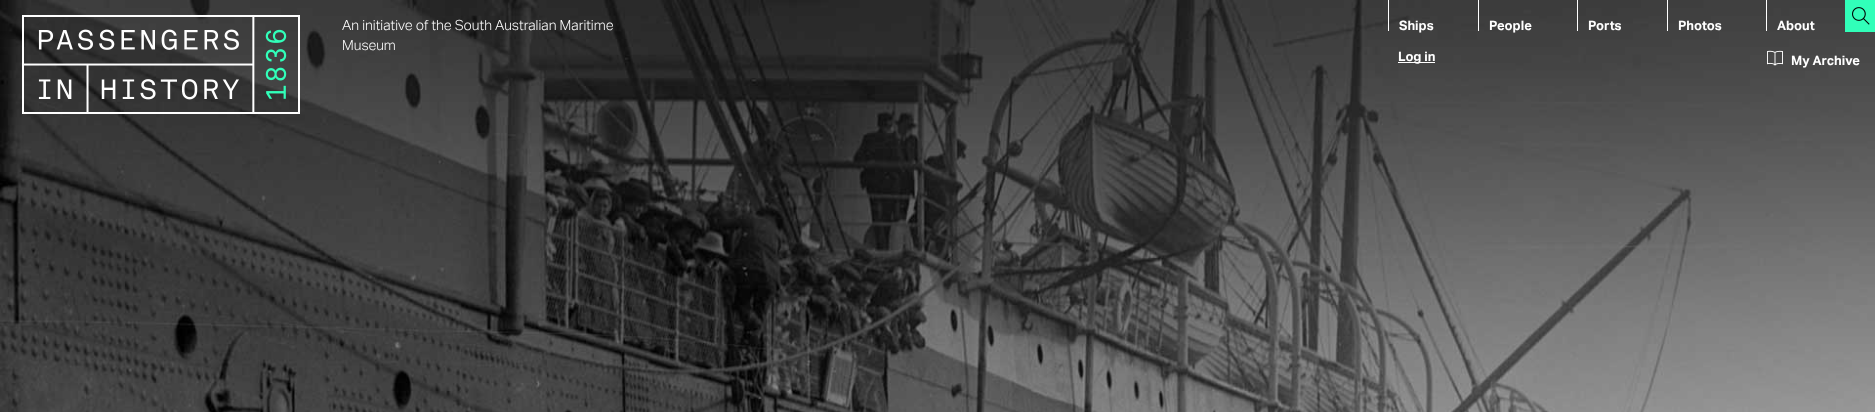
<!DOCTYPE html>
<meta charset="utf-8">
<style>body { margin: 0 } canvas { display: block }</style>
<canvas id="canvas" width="1875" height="412"></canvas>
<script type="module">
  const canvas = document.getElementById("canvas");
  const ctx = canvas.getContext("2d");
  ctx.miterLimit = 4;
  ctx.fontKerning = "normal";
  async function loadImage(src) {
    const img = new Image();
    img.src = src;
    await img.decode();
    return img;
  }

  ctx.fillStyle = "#ffffff";
  ctx.fillRect(0, 0, 1875, 412);
  ctx.drawImage(await loadImage("img1.png"), 0, 0, 1875, 412);
  ctx.drawImage(await loadImage("img2.png"), 22, 15, 278, 99);
  ctx.font = "300 14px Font";
  ctx.fillText("An initiative of the South Australian Maritime", 342, 30);
  ctx.fillText("Museum", 342, 50);
  ctx.fillRect(1388, 0, 1, 31);
  ctx.font = "bold 13px Font";
  ctx.fillText("Ships", 1399, 30);
  ctx.fillRect(1478, 0, 1, 31);
  ctx.fillText("People", 1489, 30);
  ctx.fillRect(1577, 0, 1, 31);
  ctx.fillText("Ports", 1588, 30);
  ctx.fillRect(1667, 0, 1, 31);
  ctx.fillText("Photos", 1678, 30);
  ctx.fillRect(1766, 0, 1, 31);
  ctx.fillText("About", 1777, 30);
  ctx.fillRect(1398, 62, 37, 1);
  ctx.fillText("Log in", 1398, 61);
  ctx.fillStyle = "#31ffb9";
  ctx.fillRect(1845, 0, 30, 32);
  ctx.drawImage(await loadImage("img3.png"), 1852, 7, 18, 18);
  ctx.drawImage(await loadImage("img4.png"), 1767, 50, 16, 16);
  ctx.fillStyle = "#ffffff";
  ctx.fillText("My Archive", 1791, 65);
</script>
